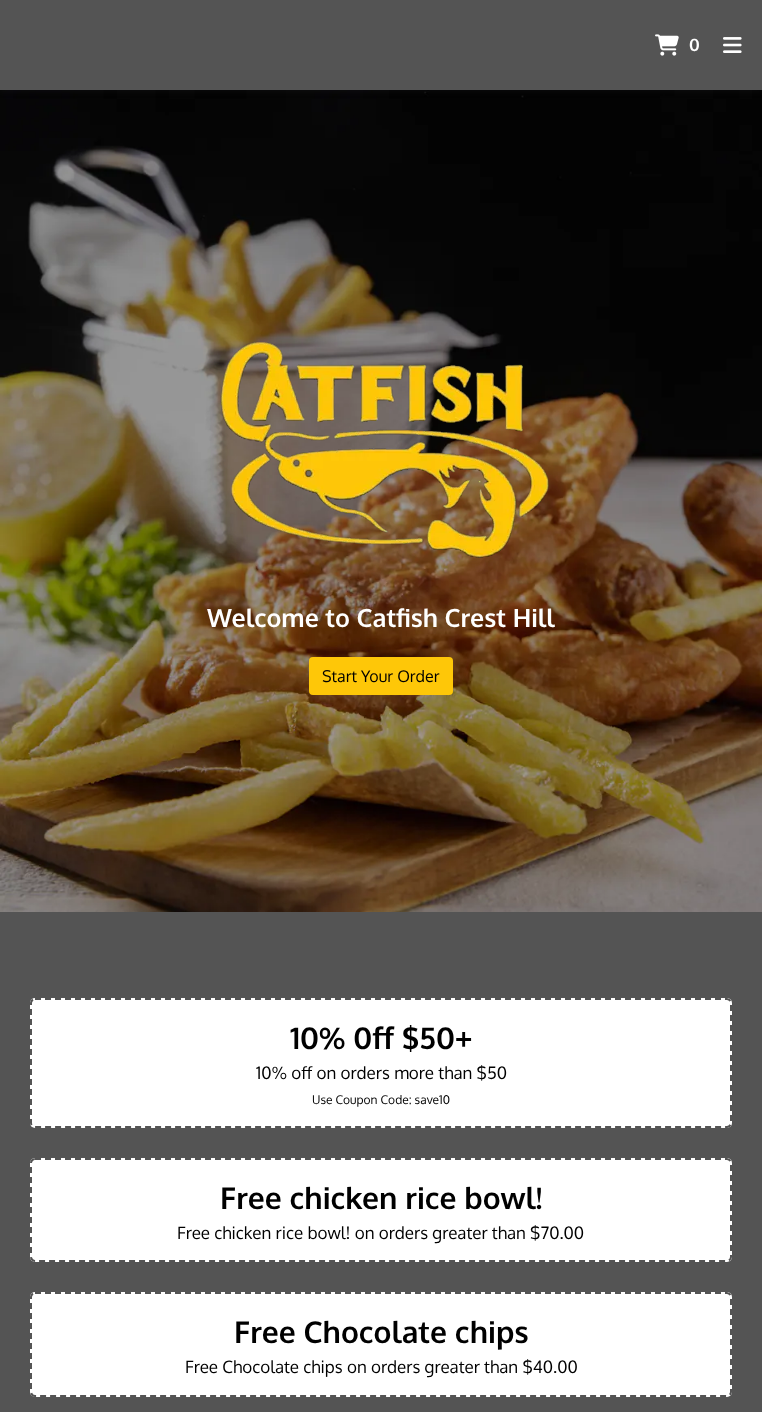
<!DOCTYPE html>
<meta charset="utf-8">
<style>body { margin: 0 } canvas { display: block }</style>
<canvas id="canvas" width="762" height="1412"></canvas>
<script type="module">
  const canvas = document.getElementById("canvas");
  const ctx = canvas.getContext("2d");
  ctx.miterLimit = 4;
  ctx.fontKerning = "normal";
  async function loadImage(src) {
    const img = new Image();
    img.src = src;
    await img.decode();
    return img;
  }

  ctx.fillStyle = "#ffffff";
  ctx.fillRect(0, 0, 762, 1412);
  ctx.drawImage(await loadImage("img3.png"), 0, 90, 762, 822);
  ctx.fillStyle = "rgba(32, 33, 36, 0.28)";
  ctx.filter = "blur(3px)";
  ctx.beginPath();
  ctx.rect(0, 1, 762, 90);
  ctx.fill();
  ctx.filter = "none";
  ctx.fillStyle = "#545454";
  ctx.fillRect(0, 0, 762, 90);
  ctx.drawImage(await loadImage("img1.png"), 655, 34, 24, 22);
  ctx.font = "bold 17px Oxygen";
  ctx.fillStyle = "#ffffff";
  ctx.fillText("0", 689, 51);
  ctx.drawImage(await loadImage("img2.png"), 723, 37, 19, 16);
  ctx.drawImage(await loadImage("img4.png"), 220, 342, 329, 216);
  ctx.font = "bold 25px Oxygen";
  ctx.fillText("Welcome to Catfish Crest Hill", 207, 627);
  ctx.fillStyle = "#fec708";
  ctx.beginPath();
  ctx.roundRect(309, 657, 144, 38, 4);
  ctx.fill();
  ctx.font = "16px Oxygen";
  ctx.fillStyle = "#000000";
  ctx.fillText("Start Your Order", 322, 682);
  ctx.fillStyle = "#545454";
  ctx.fillRect(0, 912, 762, 500);
  ctx.fillStyle = "#ffffff";
  ctx.beginPath();
  ctx.roundRect(30, 998, 702, 130, 5);
  ctx.fill();
  ctx.beginPath();
  ctx.moveTo(35, 999);
  ctx.lineTo(727, 999);
  ctx.bezierCurveTo(729, 999, 731, 1001, 731, 1003);
  ctx.lineTo(731, 1123);
  ctx.bezierCurveTo(731, 1125, 729, 1127, 727, 1127);
  ctx.lineTo(35, 1127);
  ctx.bezierCurveTo(33, 1127, 31, 1125, 31, 1123);
  ctx.lineTo(31, 1003);
  ctx.bezierCurveTo(31, 1001, 33, 999, 35, 999);
  ctx.closePath();
  ctx.strokeStyle = "#545454";
  ctx.lineWidth = 2;
  ctx.setLineDash([6, 4]);
  ctx.stroke();
  ctx.font = "bold 30px Oxygen";
  ctx.fillStyle = "#000000";
  ctx.fillText("10% 0ff $50+", 290, 1049);
  ctx.font = "17px Oxygen";
  ctx.fillText("10% off on orders more than $50", 256, 1079);
  ctx.font = "12px Oxygen";
  ctx.fillText("Use Coupon Code: save10", 312, 1104);
  ctx.fillStyle = "#ffffff";
  ctx.beginPath();
  ctx.roundRect(30, 1158, 702, 104, 5);
  ctx.fill();
  ctx.beginPath();
  ctx.moveTo(35, 1159);
  ctx.lineTo(727, 1159);
  ctx.bezierCurveTo(729, 1159, 731, 1161, 731, 1163);
  ctx.lineTo(731, 1257);
  ctx.bezierCurveTo(731, 1259, 729, 1261, 727, 1261);
  ctx.lineTo(35, 1261);
  ctx.bezierCurveTo(33, 1261, 31, 1259, 31, 1257);
  ctx.lineTo(31, 1163);
  ctx.bezierCurveTo(31, 1161, 33, 1159, 35, 1159);
  ctx.closePath();
  ctx.stroke();
  ctx.font = "bold 30px Oxygen";
  ctx.fillStyle = "#000000";
  ctx.fillText("Free chicken rice bowl!", 220, 1209);
  ctx.font = "17px Oxygen";
  ctx.fillText("Free chicken rice bowl! on orders greater than $70.00", 177, 1239);
  ctx.fillStyle = "#ffffff";
  ctx.beginPath();
  ctx.roundRect(30, 1292, 702, 105, 5);
  ctx.fill();
  ctx.beginPath();
  ctx.moveTo(35, 1293);
  ctx.lineTo(727, 1293);
  ctx.bezierCurveTo(729, 1293, 731, 1295, 731, 1297);
  ctx.lineTo(731, 1392);
  ctx.bezierCurveTo(731, 1394, 729, 1396, 727, 1396);
  ctx.lineTo(35, 1396);
  ctx.bezierCurveTo(33, 1396, 31, 1394, 31, 1392);
  ctx.lineTo(31, 1297);
  ctx.bezierCurveTo(31, 1295, 33, 1293, 35, 1293);
  ctx.closePath();
  ctx.stroke();
  ctx.font = "bold 30px Oxygen";
  ctx.fillStyle = "#000000";
  ctx.fillText("Free Chocolate chips", 234, 1343);
  ctx.font = "17px Oxygen";
  ctx.fillText("Free Chocolate chips on orders greater than $40.00", 185, 1373);
</script>
